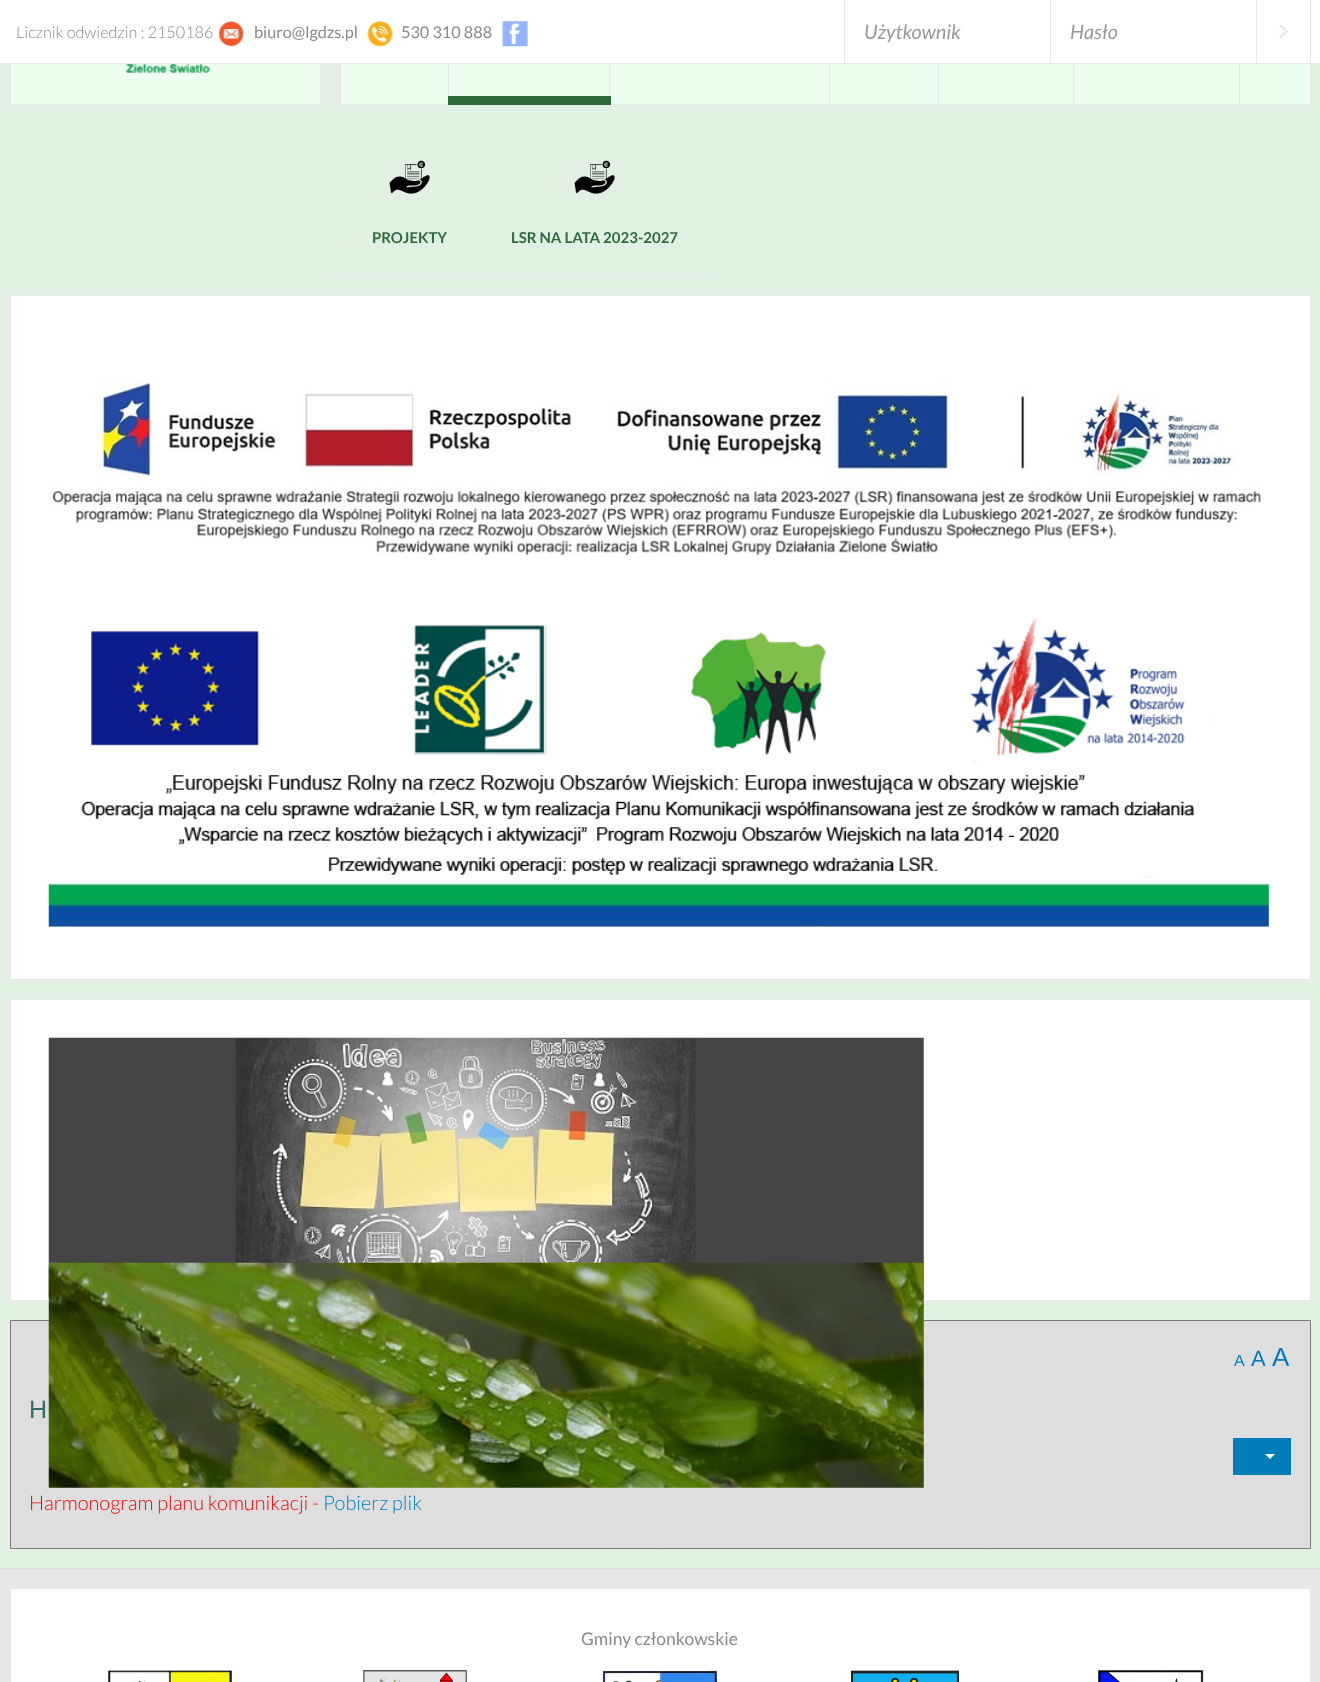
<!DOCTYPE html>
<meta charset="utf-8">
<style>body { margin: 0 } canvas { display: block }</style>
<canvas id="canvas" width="1320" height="1682"></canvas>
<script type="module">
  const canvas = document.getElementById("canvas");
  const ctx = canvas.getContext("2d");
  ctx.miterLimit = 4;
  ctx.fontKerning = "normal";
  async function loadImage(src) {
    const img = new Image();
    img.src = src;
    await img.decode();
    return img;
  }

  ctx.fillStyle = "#e2f0e4";
  ctx.fillRect(0, 0, 1320, 1682);
  ctx.fillStyle = "#edfff0";
  ctx.fillRect(11, 64, 309, 40);
  ctx.strokeStyle = "#e7e7e7";
  ctx.strokeRect(10.5, -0.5, 310, 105);
  ctx.fillRect(341, 64, 969, 40);
  ctx.strokeRect(340.5, -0.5, 970, 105);
  ctx.fillStyle = "#ffffff";
  ctx.fillRect(0, 0, 1320, 63);
  ctx.fillStyle = "#e7e7e7";
  ctx.fillRect(0, 63, 1320, 1);
  ctx.font = "300 16.25px Lato";
  ctx.fillStyle = "#898989";
  ctx.fillText("Licznik odwiedzin : 2150186", 16, 38);
  ctx.drawImage(await loadImage("img1.png"), 219, 21, 25, 26);
  ctx.font = "16.25px Lato";
  ctx.fillText("biuro@lgdzs.pl", 254, 38);
  ctx.drawImage(await loadImage("img2.png"), 366, 21, 27, 26);
  ctx.fillText("530 310 888", 401, 38);
  ctx.drawImage(await loadImage("img3.png"), 501, 21, 27, 26);
  ctx.fillStyle = "#e7e7e7";
  ctx.fillRect(844, 0, 1, 63);
  ctx.font = "italic 20px Lato";
  ctx.fillStyle = "#999999";
  ctx.fillText("Użytkownik", 864, 39);
  ctx.fillStyle = "#e7e7e7";
  ctx.fillRect(1050, 0, 1, 63);
  ctx.fillStyle = "#999999";
  ctx.fillText("Hasło", 1070, 39);
  ctx.drawImage(await loadImage("img4.png"), 1279, 25, 9, 13);
  ctx.fillStyle = "#e7e7e7";
  ctx.fillRect(1310, 0, 1, 63);
  ctx.fillRect(1256, 0, 1, 63);
  ctx.drawImage(await loadImage("img5.png"), 126, 64, 85, 9);
  ctx.fillRect(448, 64, 1, 32);
  ctx.fillRect(609, 64, 1, 32);
  ctx.fillRect(479, 104, 1, 174);
  ctx.fillStyle = "#2f6b3b";
  ctx.fillRect(448, 96, 163, 9);
  ctx.fillStyle = "#e7e7e7";
  ctx.fillRect(829, 64, 1, 41);
  ctx.fillRect(938, 64, 1, 41);
  ctx.fillRect(1073, 64, 1, 41);
  ctx.fillRect(1239, 64, 1, 41);
  ctx.fillRect(341, 276, 139, 1);
  ctx.drawImage(await loadImage("img6.png"), 389, 160, 41, 34);
  ctx.font = "bold 15px Lato";
  ctx.fillStyle = "#2f6b3b";
  ctx.fillText("PROJEKTY", 372, 243);
  ctx.fillStyle = "#e7e7e7";
  ctx.fillRect(709, 104, 1, 174);
  ctx.fillRect(480, 276, 230, 1);
  ctx.drawImage(await loadImage("img6.png"), 574, 160, 41, 34);
  ctx.fillStyle = "#2f6b3b";
  ctx.fillText("LSR NA LATA 2023-2027", 511, 243);
  ctx.fillStyle = "#ffffff";
  ctx.beginPath();
  ctx.rect(10.5, 295.5, 1300, 684);
  ctx.fill();
  ctx.stroke();
  ctx.drawImage(await loadImage("img7.png"), 52, 381, 1209, 175);
  ctx.drawImage(await loadImage("img8.png"), 48, 617, 1221, 311);
  ctx.beginPath();
  ctx.rect(10.5, 999.5, 1300, 301);
  ctx.fill();
  ctx.stroke();
  ctx.drawImage(await loadImage("img9.png"), 48, 1037, 876, 261);
  ctx.fillStyle = "#dedede";
  ctx.beginPath();
  ctx.rect(10.5, 1320.5, 1300, 228);
  ctx.fill();
  ctx.strokeStyle = "#827878";
  ctx.stroke();
  ctx.drawImage(await loadImage("img10.png"), 48, 1262, 876, 226);
  ctx.font = "16px Liberation Sans";
  ctx.fillStyle = "#017eba";
  ctx.fillText("A", 1234, 1366);
  ctx.font = "22px Liberation Sans";
  ctx.fillText("A", 1251, 1366);
  ctx.font = "26px Liberation Sans";
  ctx.fillText("A", 1272, 1366);
  ctx.font = "25px Liberation Sans";
  ctx.fillStyle = "#336b69";
  ctx.fillText("H", 29, 1418);
  ctx.fillStyle = "#017eba";
  ctx.fillRect(1233, 1438, 58, 37);
  ctx.fillStyle = "#ffffff";
  ctx.beginPath();
  ctx.moveTo(1265, 1454);
  ctx.lineTo(1275, 1454);
  ctx.lineTo(1270, 1459);
  ctx.closePath();
  ctx.fill();
  ctx.font = "300 20px Lato";
  ctx.fillStyle = "#ff0000";
  ctx.fillText("Harmonogram planu komunikacji -", 29, 1510);
  ctx.fillStyle = "#017eba";
  ctx.fillText("Pobierz plik", 323, 1510);
  ctx.fillStyle = "#e7e7e7";
  ctx.fillRect(0, 1569, 1320, 113);
  ctx.fillStyle = "#dedede";
  ctx.fillRect(0, 1568, 1320, 1);
  ctx.fillStyle = "#ffffff";
  ctx.fillRect(11, 1589, 1299, 93);
  ctx.font = "17.5px Lato";
  ctx.fillStyle = "#898989";
  ctx.fillText("Gminy członkowskie", 581, 1645);
  ctx.drawImage(await loadImage("img11.png"), 108, 1670, 124, 12);
  ctx.drawImage(await loadImage("img12.png"), 363, 1670, 104, 12);
  ctx.drawImage(await loadImage("img13.png"), 602, 1670, 116, 12);
  ctx.drawImage(await loadImage("img14.png"), 851, 1670, 108, 12);
  ctx.drawImage(await loadImage("img15.png"), 1098, 1670, 106, 12);
</script>
